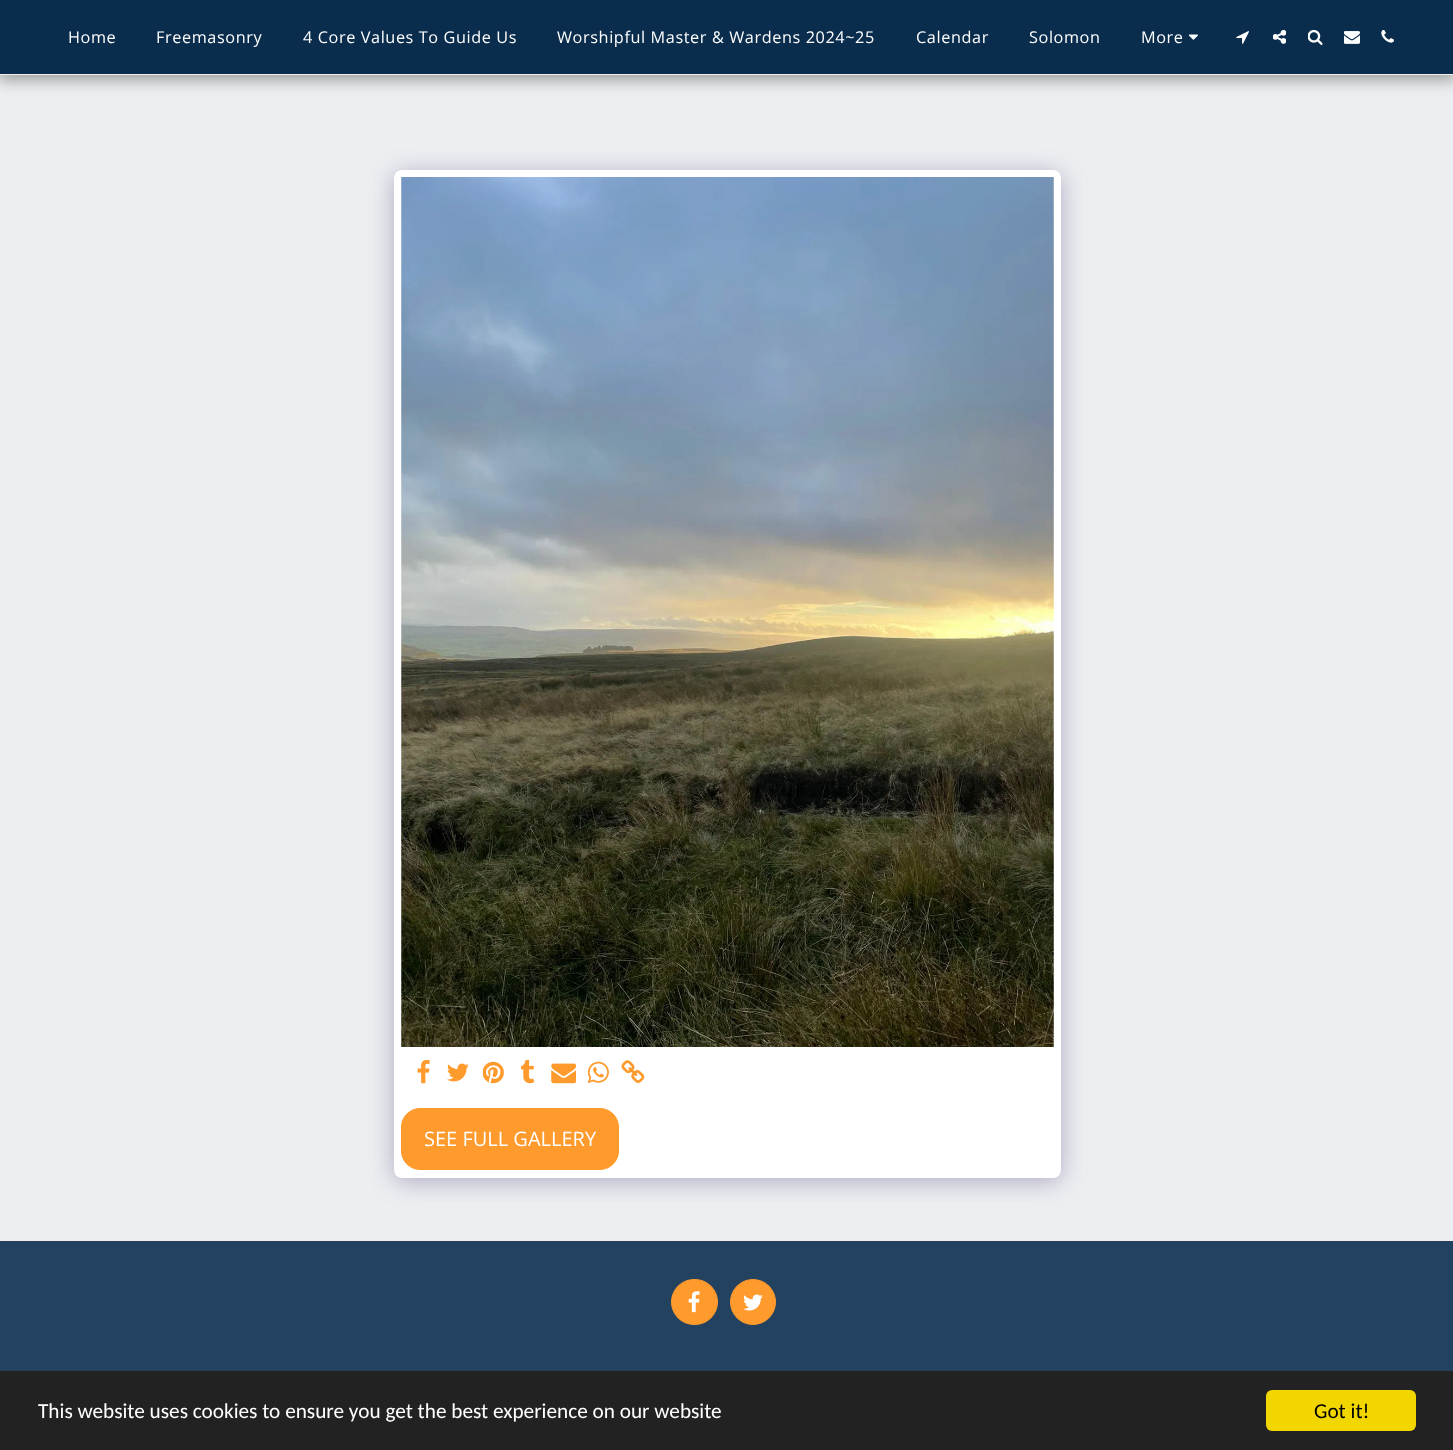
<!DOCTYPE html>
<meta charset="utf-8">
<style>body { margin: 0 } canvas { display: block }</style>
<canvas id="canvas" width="1453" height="1450"></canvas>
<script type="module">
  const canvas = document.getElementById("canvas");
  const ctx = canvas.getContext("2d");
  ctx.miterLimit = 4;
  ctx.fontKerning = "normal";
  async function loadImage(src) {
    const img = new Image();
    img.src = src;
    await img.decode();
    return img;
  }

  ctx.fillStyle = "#eceff1";
  ctx.fillRect(0, 0, 1453, 1450);
  ctx.fillStyle = "rgba(0, 0, 0, 0.35)";
  ctx.filter = "blur(7.5px)";
  ctx.beginPath();
  ctx.rect(-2, 0, 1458, 80);
  ctx.fill();
  ctx.filter = "none";
  ctx.fillStyle = "#0a2d4d";
  ctx.fillRect(0, 0, 1453, 74);
  ctx.fillStyle = "#f3eeee";
  ctx.fillRect(0, 74, 1453, 1);
  ctx.letterSpacing = "0.6px";
  ctx.font = "16.25px Open Sans";
  ctx.fillStyle = "#ffffff";
  ctx.fillText("Home", 68, 43);
  ctx.fillText("Freemasonry", 156, 43);
  ctx.fillText("4 Core Values To Guide Us", 303, 43);
  ctx.fillText("Worshipful Master & Wardens 2024~25", 557, 43);
  ctx.fillText("Calendar", 916, 43);
  ctx.fillText("Solomon", 1029, 43);
  ctx.fillText("More", 1141, 43);
  ctx.drawImage(await loadImage("img1.png"), 1189, 34, 9, 6);
  ctx.drawImage(await loadImage("img2.png"), 1236, 31, 13, 13);
  ctx.drawImage(await loadImage("img3.png"), 1273, 29, 13, 15);
  ctx.drawImage(await loadImage("img4.png"), 1308, 29, 15, 16);
  ctx.drawImage(await loadImage("img5.png"), 1344, 31, 16, 13);
  ctx.drawImage(await loadImage("img6.png"), 1381, 30, 13, 13);
  ctx.fillStyle = "rgba(77, 63, 122, 0.4)";
  ctx.filter = "blur(12.5px)";
  ctx.beginPath();
  ctx.roundRect(394, 174, 667, 1007, 8);
  ctx.fill();
  ctx.filter = "none";
  ctx.fillStyle = "#ffffff";
  ctx.beginPath();
  ctx.roundRect(394, 170, 667, 1008, 8);
  ctx.fill();
  ctx.drawImage(await loadImage("img7.png"), 401, 177, 653, 870);
  ctx.drawImage(await loadImage("img8.png"), 417, 1060, 13, 24);
  ctx.drawImage(await loadImage("img9.png"), 447, 1063, 22, 19);
  ctx.drawImage(await loadImage("img10.png"), 483, 1061, 21, 23);
  ctx.drawImage(await loadImage("img11.png"), 520, 1060, 15, 24);
  ctx.drawImage(await loadImage("img12.png"), 551, 1063, 25, 21);
  ctx.drawImage(await loadImage("img13.png"), 588, 1061, 21, 23);
  ctx.drawImage(await loadImage("img14.png"), 621, 1060, 24, 23);
  ctx.fillStyle = "#ff9a2d";
  ctx.beginPath();
  ctx.roundRect(401.5, 1108.5, 217, 61, 18.5);
  ctx.fill();
  ctx.strokeStyle = "#ff9a2d";
  ctx.stroke();
  ctx.letterSpacing = "0px";
  ctx.font = "20px Open Sans";
  ctx.fillStyle = "#ffffff";
  ctx.fillText("SEE FULL GALLERY", 424, 1146);
  ctx.fillStyle = "#f3eeee";
  ctx.fillRect(0, 1240, 1453, 1);
  ctx.fillStyle = "#23425f";
  ctx.fillRect(0, 1241, 1453, 130);
  ctx.fillStyle = "#ff9a2d";
  ctx.beginPath();
  ctx.roundRect(671.5, 1279.5, 46, 45, 22.5);
  ctx.fill();
  ctx.stroke();
  ctx.drawImage(await loadImage("img15.png"), 688, 1291, 12, 22);
  ctx.beginPath();
  ctx.arc(753, 1302, 22.5, 0, Math.PI * 2);
  ctx.fill();
  ctx.stroke();
  ctx.drawImage(await loadImage("img16.png"), 743, 1294, 20, 17);
  ctx.fillStyle = "#222222";
  ctx.fillRect(0, 1371, 1453, 79);
  ctx.font = "21.25px Carlito";
  ctx.fillStyle = "#ffffff";
  ctx.fillText("This website uses cookies to ensure you get the best experience on our website", 38, 1418);
  ctx.fillStyle = "#f1d600";
  ctx.beginPath();
  ctx.roundRect(1266, 1390, 150, 41, 6);
  ctx.fill();
  ctx.fillStyle = "#000000";
  ctx.fillText("Got it!", 1314, 1418);
</script>
